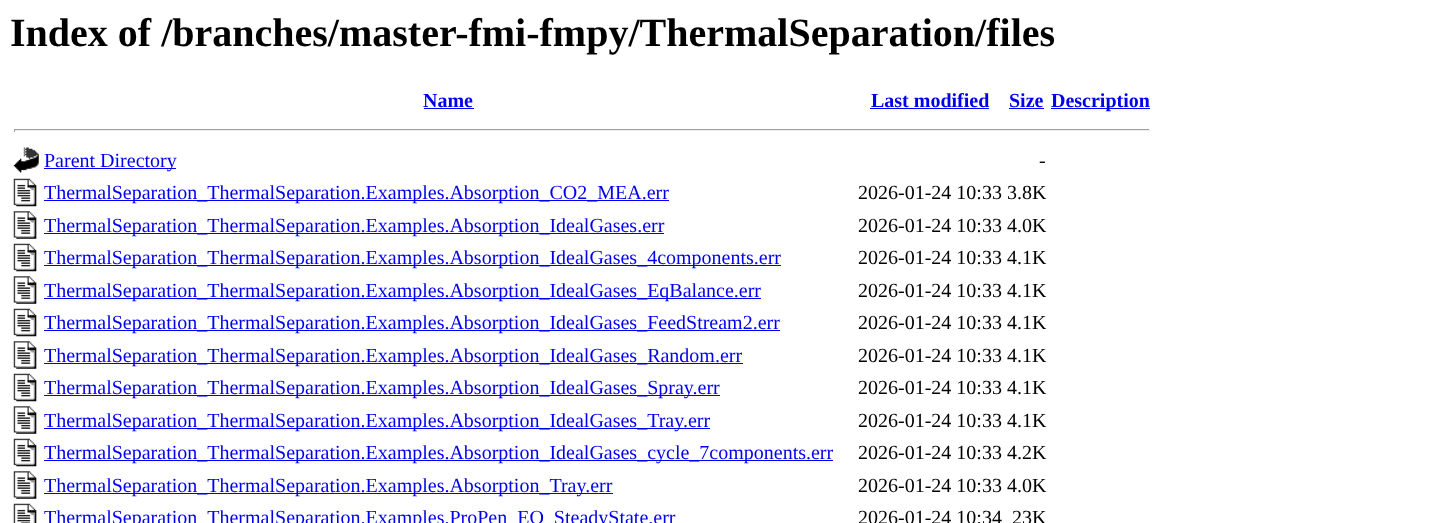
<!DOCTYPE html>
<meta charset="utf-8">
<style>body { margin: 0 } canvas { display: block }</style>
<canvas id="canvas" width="1441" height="523"></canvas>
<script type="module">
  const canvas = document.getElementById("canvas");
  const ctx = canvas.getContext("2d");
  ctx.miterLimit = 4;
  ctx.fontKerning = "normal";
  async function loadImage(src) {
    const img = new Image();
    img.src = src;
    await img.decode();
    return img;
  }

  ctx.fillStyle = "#ffffff";
  ctx.fillRect(0, 0, 1441, 523);
  ctx.font = "bold 40px Liberation Serif";
  ctx.fillStyle = "#000000";
  ctx.fillText("Index of /branches/master-fmi-fmpy/ThermalSeparation/files", 10, 46);
  ctx.font = "bold 20px Liberation Serif";
  ctx.fillStyle = "#0000ee";
  ctx.fillText("Name", 423, 107);
  ctx.fillRect(424, 108, 50, 1);
  ctx.fillText("Last modified", 871, 107);
  ctx.fillRect(870, 108, 119, 1);
  ctx.fillText("Size", 1009, 107);
  ctx.fillRect(1009, 108, 35, 1);
  ctx.fillRect(1051, 108, 99, 1);
  ctx.fillText("Description", 1051, 107);
  ctx.fillStyle = "#9f9f9f";
  ctx.fillRect(14, 129, 1136, 1);
  ctx.fillStyle = "#eeeeee";
  ctx.fillRect(1149, 129, 1, 3);
  ctx.fillRect(14, 130, 1136, 1);
  ctx.fillStyle = "#9f9f9f";
  ctx.fillRect(14, 129, 1, 3);
  ctx.drawImage(await loadImage("img1.png"), 13, 147, 26, 26);
  ctx.fillStyle = "#0000ee";
  ctx.fillRect(44, 168, 132, 1);
  ctx.font = "20px Liberation Serif";
  ctx.fillText("Parent Directory", 44, 167);
  ctx.fillStyle = "#000000";
  ctx.fillText("-", 1039, 167);
  ctx.drawImage(await loadImage("img2.png"), 13, 178, 24, 29);
  ctx.fillStyle = "#0000ee";
  ctx.fillRect(44, 200, 625, 1);
  ctx.fillText("ThermalSeparation_ThermalSeparation.Examples.Absorption_CO2_MEA.err", 44, 199);
  ctx.fillStyle = "#000000";
  ctx.fillText("2026-01-24 10:33 3.8K", 858, 199);
  ctx.drawImage(await loadImage("img3.png"), 13, 211, 24, 28);
  ctx.fillStyle = "#0000ee";
  ctx.fillRect(44, 233, 620, 1);
  ctx.fillText("ThermalSeparation_ThermalSeparation.Examples.Absorption_IdealGases.err", 44, 232);
  ctx.fillStyle = "#000000";
  ctx.fillText("2026-01-24 10:33 4.0K", 858, 232);
  ctx.drawImage(await loadImage("img2.png"), 13, 243, 24, 29);
  ctx.fillStyle = "#0000ee";
  ctx.fillRect(44, 265, 737, 1);
  ctx.fillText("ThermalSeparation_ThermalSeparation.Examples.Absorption_IdealGases_4components.err", 44, 264);
  ctx.fillStyle = "#000000";
  ctx.fillText("2026-01-24 10:33 4.1K", 858, 264);
  ctx.drawImage(await loadImage("img4.png"), 13, 276, 24, 28);
  ctx.fillStyle = "#0000ee";
  ctx.fillRect(44, 298, 717, 1);
  ctx.fillText("ThermalSeparation_ThermalSeparation.Examples.Absorption_IdealGases_EqBalance.err", 44, 297);
  ctx.fillStyle = "#000000";
  ctx.fillText("2026-01-24 10:33 4.1K", 858, 297);
  ctx.drawImage(await loadImage("img2.png"), 13, 308, 24, 29);
  ctx.fillStyle = "#0000ee";
  ctx.fillRect(44, 330, 736, 1);
  ctx.fillText("ThermalSeparation_ThermalSeparation.Examples.Absorption_IdealGases_FeedStream2.err", 44, 329);
  ctx.fillStyle = "#000000";
  ctx.fillText("2026-01-24 10:33 4.1K", 858, 329);
  ctx.drawImage(await loadImage("img3.png"), 13, 341, 24, 28);
  ctx.fillStyle = "#0000ee";
  ctx.fillRect(44, 363, 699, 1);
  ctx.fillText("ThermalSeparation_ThermalSeparation.Examples.Absorption_IdealGases_Random.err", 44, 362);
  ctx.fillStyle = "#000000";
  ctx.fillText("2026-01-24 10:33 4.1K", 858, 362);
  ctx.drawImage(await loadImage("img2.png"), 13, 373, 24, 29);
  ctx.fillStyle = "#0000ee";
  ctx.fillRect(44, 395, 676, 1);
  ctx.fillText("ThermalSeparation_ThermalSeparation.Examples.Absorption_IdealGases_Spray.err", 44, 394);
  ctx.fillStyle = "#000000";
  ctx.fillText("2026-01-24 10:33 4.1K", 858, 394);
  ctx.drawImage(await loadImage("img3.png"), 13, 406, 24, 28);
  ctx.fillStyle = "#0000ee";
  ctx.fillRect(44, 428, 666, 1);
  ctx.fillText("ThermalSeparation_ThermalSeparation.Examples.Absorption_IdealGases_Tray.err", 44, 427);
  ctx.fillStyle = "#000000";
  ctx.fillText("2026-01-24 10:33 4.1K", 858, 427);
  ctx.drawImage(await loadImage("img2.png"), 13, 438, 24, 29);
  ctx.fillStyle = "#0000ee";
  ctx.fillRect(44, 460, 789, 1);
  ctx.fillText("ThermalSeparation_ThermalSeparation.Examples.Absorption_IdealGases_cycle_7components.err", 44, 459);
  ctx.fillStyle = "#000000";
  ctx.fillText("2026-01-24 10:33 4.2K", 858, 459);
  ctx.drawImage(await loadImage("img3.png"), 13, 471, 24, 28);
  ctx.fillStyle = "#0000ee";
  ctx.fillRect(44, 493, 569, 1);
  ctx.fillText("ThermalSeparation_ThermalSeparation.Examples.Absorption_Tray.err", 44, 492);
  ctx.fillStyle = "#000000";
  ctx.fillText("2026-01-24 10:33 4.0K", 858, 492);
  ctx.drawImage(await loadImage("img5.png"), 13, 503, 24, 20);
  ctx.fillStyle = "#0000ee";
  ctx.fillText("ThermalSeparation_ThermalSeparation.Examples.ProPen_EQ_SteadyState.err", 44, 524);
  ctx.fillStyle = "#000000";
  ctx.fillText("2026-01-24 10:34", 858, 524);
  ctx.fillText("23K", 1012, 524);
</script>
